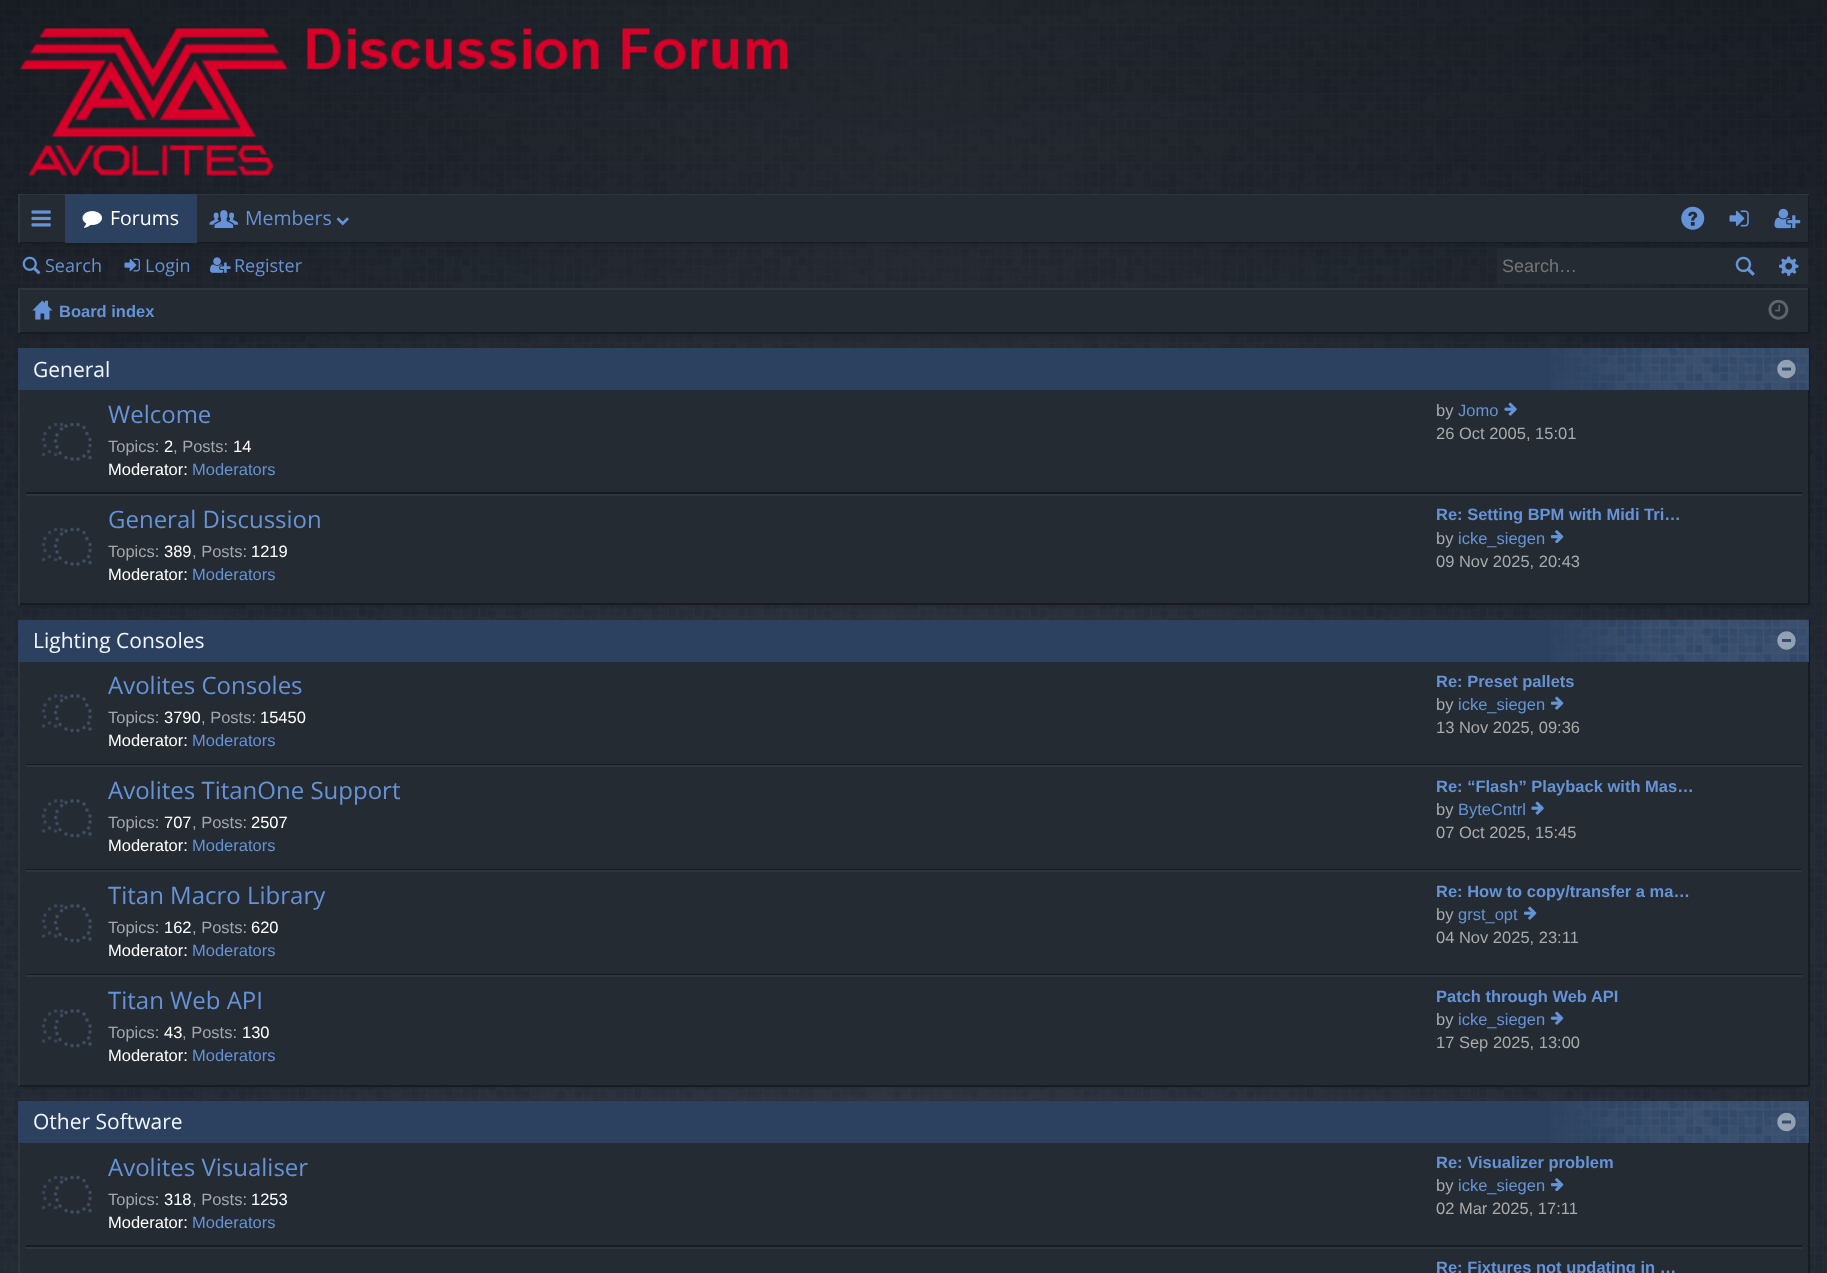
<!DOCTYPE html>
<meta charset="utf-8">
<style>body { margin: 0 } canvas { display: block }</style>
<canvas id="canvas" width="1827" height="1273"></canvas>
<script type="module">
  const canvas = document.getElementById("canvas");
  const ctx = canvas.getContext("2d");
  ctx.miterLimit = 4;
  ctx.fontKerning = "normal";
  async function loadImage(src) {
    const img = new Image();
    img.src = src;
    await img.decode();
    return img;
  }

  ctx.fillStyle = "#1c232e";
  ctx.fillRect(0, 0, 1827, 1273);
  ctx.drawImage(await loadImage("img1.png"), 0, 0, 1827, 1273);
  ctx.drawImage(await loadImage("img2.png"), 19, 27, 769, 149);
  ctx.fillStyle = "rgba(0, 0, 0, 0.2)";
  ctx.filter = "blur(4px)";
  ctx.beginPath();
  ctx.rect(26, 209, 1776, 34);
  ctx.fill();
  ctx.filter = "none";
  ctx.fillStyle = "#252b33";
  ctx.fillRect(20, 195, 1788, 47);
  ctx.save();
  ctx.beginPath();
  ctx.rect(18, 194, 1791, 49);
  ctx.clip();
  ctx.fillStyle = "#181c21";
  ctx.beginPath();
  ctx.moveTo(-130, 45);
  ctx.lineTo(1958, 45);
  ctx.lineTo(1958, 392);
  ctx.lineTo(-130, 392);
  ctx.closePath();
  ctx.moveTo(16, 192);
  ctx.lineTo(1808, 192);
  ctx.lineTo(1808, 242);
  ctx.lineTo(16, 242);
  ctx.closePath();
  ctx.fill("evenodd");
  ctx.fillStyle = "#2e353f";
  ctx.beginPath();
  ctx.moveTo(-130, 45);
  ctx.lineTo(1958, 45);
  ctx.lineTo(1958, 392);
  ctx.lineTo(-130, 392);
  ctx.closePath();
  ctx.moveTo(20, 195);
  ctx.lineTo(1810, 195);
  ctx.lineTo(1810, 244);
  ctx.lineTo(20, 244);
  ctx.closePath();
  ctx.fill("evenodd");
  ctx.restore();
  ctx.drawImage(await loadImage("img3.png"), 31, 210, 20, 17);
  ctx.fillStyle = "#2c415f";
  ctx.fillRect(65, 194, 132, 49);
  ctx.drawImage(await loadImage("img4.png"), 82, 211, 20, 17);
  ctx.font = "19.5px Open Sans";
  ctx.fillStyle = "#ffffff";
  ctx.fillText("Forums", 110, 225);
  ctx.drawImage(await loadImage("img5.png"), 209, 210, 30, 18);
  ctx.fillStyle = "#6593d6";
  ctx.fillText("Members", 245, 225);
  ctx.drawImage(await loadImage("img6.png"), 336, 217, 13, 9);
  ctx.drawImage(await loadImage("img7.png"), 1681, 206, 24, 24);
  ctx.drawImage(await loadImage("img8.png"), 1729, 210, 20, 17);
  ctx.drawImage(await loadImage("img9.png"), 1774, 208, 27, 21);
  ctx.drawImage(await loadImage("img10.png"), 22, 256, 19, 19);
  ctx.font = "18px Open Sans";
  ctx.fillText("Search", 45, 272);
  ctx.drawImage(await loadImage("img11.png"), 124, 258, 16, 14);
  ctx.fillText("Login", 145, 272);
  ctx.drawImage(await loadImage("img12.png"), 210, 257, 21, 16);
  ctx.fillText("Register", 234, 272);
  ctx.fillStyle = "#252b33";
  ctx.fillRect(1497, 248, 311, 36);
  ctx.font = "18px Liberation Sans";
  ctx.fillStyle = "#757576";
  ctx.fillText("Search…", 1502, 272);
  ctx.drawImage(await loadImage("img13.png"), 1735, 256, 20, 20);
  ctx.drawImage(await loadImage("img14.png"), 1779, 256, 20, 20);
  ctx.fillStyle = "rgba(0, 0, 0, 0.2)";
  ctx.filter = "blur(4px)";
  ctx.beginPath();
  ctx.rect(26, 303, 1776, 30);
  ctx.fill();
  ctx.filter = "none";
  ctx.fillStyle = "#252b33";
  ctx.fillRect(20, 290, 1788, 42);
  ctx.fillStyle = "#2e353f";
  ctx.fillRect(18, 288, 1791, 2);
  ctx.fillStyle = "#181c21";
  ctx.fillRect(1808, 288, 2, 45);
  ctx.fillRect(18, 332, 1791, 2);
  ctx.fillStyle = "#2e353f";
  ctx.fillRect(18, 288, 2, 45);
  ctx.drawImage(await loadImage("img15.png"), 32, 300, 21, 20);
  ctx.font = "bold 16.5px Liberation Sans";
  ctx.fillStyle = "#6593d6";
  ctx.fillText("Board index", 59, 317);
  ctx.drawImage(await loadImage("img16.png"), 1768, 299, 21, 21);
  ctx.fillStyle = "rgba(0, 0, 0, 0.2)";
  ctx.filter = "blur(4px)";
  ctx.beginPath();
  ctx.rect(26, 363, 1776, 242);
  ctx.fill();
  ctx.filter = "none";
  ctx.fillStyle = "#252b33";
  ctx.fillRect(20, 390, 1788, 213);
  ctx.fillStyle = "#181c21";
  ctx.fillRect(1808, 348, 2, 257);
  ctx.fillRect(18, 603, 1791, 2);
  ctx.fillStyle = "#2e353f";
  ctx.fillRect(18, 390, 2, 215);
  ctx.fillStyle = "#2c415f";
  ctx.fillRect(18, 348, 1791, 42);
  ctx.drawImage(await loadImage("img17.png"), 1550, 348, 259, 42);
  ctx.font = "21px Open Sans";
  ctx.fillStyle = "#f1f6fc";
  ctx.fillText("General", 33, 377);
  ctx.drawImage(await loadImage("img18.png"), 1777, 359, 19, 20);
  ctx.fillStyle = "#181c21";
  ctx.fillRect(26, 492, 1776, 2);
  ctx.drawImage(await loadImage("img19.png"), 41, 422, 51, 39);
  ctx.font = "24px Open Sans";
  ctx.fillStyle = "#6593d6";
  ctx.fillText("Welcome", 108, 423);
  ctx.font = "16.5px Liberation Sans";
  ctx.fillStyle = "#a4a7ab";
  ctx.fillText("Topics:", 108, 452);
  ctx.fillStyle = "#ffffff";
  ctx.fillText("2", 164, 452);
  ctx.fillStyle = "#a4a7ab";
  ctx.fillText(", Posts:", 173, 452);
  ctx.fillStyle = "#ffffff";
  ctx.fillText("14", 233, 452);
  ctx.fillText("Moderator:", 108, 475);
  ctx.fillStyle = "#6593d6";
  ctx.fillText("Moderators", 192, 475);
  ctx.fillStyle = "#aaaaaa";
  ctx.fillText("by", 1436, 416);
  ctx.fillStyle = "#6593d6";
  ctx.fillText("Jomo", 1458, 416);
  ctx.drawImage(await loadImage("img20.png"), 1504, 402, 13, 14);
  ctx.fillStyle = "#aaaaaa";
  ctx.fillText("26 Oct 2005, 15:01", 1436, 439);
  ctx.fillStyle = "#2e353f";
  ctx.fillRect(26, 494, 1776, 2);
  ctx.drawImage(await loadImage("img19.png"), 41, 527, 51, 39);
  ctx.font = "24px Open Sans";
  ctx.fillStyle = "#6593d6";
  ctx.fillText("General Discussion", 108, 528);
  ctx.font = "16.5px Liberation Sans";
  ctx.fillStyle = "#a4a7ab";
  ctx.fillText("Topics:", 108, 557);
  ctx.fillStyle = "#ffffff";
  ctx.fillText("389", 164, 557);
  ctx.fillStyle = "#a4a7ab";
  ctx.fillText(", Posts:", 192, 557);
  ctx.fillStyle = "#ffffff";
  ctx.fillText("1219", 251, 557);
  ctx.fillText("Moderator:", 108, 580);
  ctx.fillStyle = "#6593d6";
  ctx.fillText("Moderators", 192, 580);
  ctx.font = "bold 16.5px Liberation Sans";
  ctx.fillText("Re: Setting BPM with Midi Tri…", 1436, 520);
  ctx.font = "16.5px Liberation Sans";
  ctx.fillStyle = "#aaaaaa";
  ctx.fillText("by", 1436, 544);
  ctx.fillStyle = "#6593d6";
  ctx.fillText("icke_siegen", 1458, 544);
  ctx.drawImage(await loadImage("img21.png"), 1551, 530, 13, 13);
  ctx.fillStyle = "#aaaaaa";
  ctx.fillText("09 Nov 2025, 20:43", 1436, 567);
  ctx.fillStyle = "rgba(0, 0, 0, 0.2)";
  ctx.filter = "blur(4px)";
  ctx.beginPath();
  ctx.rect(26, 635, 1776, 451);
  ctx.fill();
  ctx.filter = "none";
  ctx.fillStyle = "#252b33";
  ctx.fillRect(20, 662, 1788, 423);
  ctx.fillStyle = "#181c21";
  ctx.fillRect(1808, 620, 2, 466);
  ctx.fillRect(18, 1085, 1791, 2);
  ctx.fillStyle = "#2e353f";
  ctx.fillRect(18, 662, 2, 424);
  ctx.fillStyle = "#2c415f";
  ctx.fillRect(18, 620, 1791, 42);
  ctx.drawImage(await loadImage("img22.png"), 1550, 619, 259, 43);
  ctx.font = "21px Open Sans";
  ctx.fillStyle = "#f1f6fc";
  ctx.fillText("Lighting Consoles", 33, 648);
  ctx.drawImage(await loadImage("img23.png"), 1777, 631, 19, 19);
  ctx.fillStyle = "#181c21";
  ctx.fillRect(26, 764, 1776, 1);
  ctx.drawImage(await loadImage("img24.png"), 41, 694, 51, 39);
  ctx.font = "24px Open Sans";
  ctx.fillStyle = "#6593d6";
  ctx.fillText("Avolites Consoles", 108, 694);
  ctx.font = "16.5px Liberation Sans";
  ctx.fillStyle = "#a4a7ab";
  ctx.fillText("Topics:", 108, 723);
  ctx.fillStyle = "#ffffff";
  ctx.fillText("3790", 164, 723);
  ctx.fillStyle = "#a4a7ab";
  ctx.fillText(", Posts:", 201, 723);
  ctx.fillStyle = "#ffffff";
  ctx.fillText("15450", 260, 723);
  ctx.fillText("Moderator:", 108, 746);
  ctx.fillStyle = "#6593d6";
  ctx.fillText("Moderators", 192, 746);
  ctx.font = "bold 16.5px Liberation Sans";
  ctx.fillText("Re: Preset pallets", 1436, 687);
  ctx.font = "16.5px Liberation Sans";
  ctx.fillStyle = "#aaaaaa";
  ctx.fillText("by", 1436, 710);
  ctx.fillStyle = "#6593d6";
  ctx.fillText("icke_siegen", 1458, 710);
  ctx.drawImage(await loadImage("img25.png"), 1551, 696, 13, 14);
  ctx.fillStyle = "#aaaaaa";
  ctx.fillText("13 Nov 2025, 09:36", 1436, 733);
  ctx.fillStyle = "#2e353f";
  ctx.fillRect(26, 765, 1776, 2);
  ctx.fillStyle = "#181c21";
  ctx.fillRect(26, 869, 1776, 1);
  ctx.drawImage(await loadImage("img24.png"), 41, 799, 51, 39);
  ctx.font = "24px Open Sans";
  ctx.fillStyle = "#6593d6";
  ctx.fillText("Avolites TitanOne Support", 108, 799);
  ctx.font = "16.5px Liberation Sans";
  ctx.fillStyle = "#a4a7ab";
  ctx.fillText("Topics:", 108, 828);
  ctx.fillStyle = "#ffffff";
  ctx.fillText("707", 164, 828);
  ctx.fillStyle = "#a4a7ab";
  ctx.fillText(", Posts:", 192, 828);
  ctx.fillStyle = "#ffffff";
  ctx.fillText("2507", 251, 828);
  ctx.fillText("Moderator:", 108, 851);
  ctx.fillStyle = "#6593d6";
  ctx.fillText("Moderators", 192, 851);
  ctx.font = "bold 16.5px Liberation Sans";
  ctx.fillText("Re: “Flash” Playback with Mas…", 1436, 792);
  ctx.font = "16.5px Liberation Sans";
  ctx.fillStyle = "#aaaaaa";
  ctx.fillText("by", 1436, 815);
  ctx.fillStyle = "#6593d6";
  ctx.fillText("ByteCntrl", 1458, 815);
  ctx.drawImage(await loadImage("img20.png"), 1531, 801, 13, 14);
  ctx.fillStyle = "#aaaaaa";
  ctx.fillText("07 Oct 2025, 15:45", 1436, 838);
  ctx.fillStyle = "#2e353f";
  ctx.fillRect(26, 870, 1776, 2);
  ctx.fillStyle = "#181c21";
  ctx.fillRect(26, 974, 1776, 1);
  ctx.drawImage(await loadImage("img24.png"), 41, 904, 51, 39);
  ctx.font = "24px Open Sans";
  ctx.fillStyle = "#6593d6";
  ctx.fillText("Titan Macro Library", 108, 904);
  ctx.font = "16.5px Liberation Sans";
  ctx.fillStyle = "#a4a7ab";
  ctx.fillText("Topics:", 108, 933);
  ctx.fillStyle = "#ffffff";
  ctx.fillText("162", 164, 933);
  ctx.fillStyle = "#a4a7ab";
  ctx.fillText(", Posts:", 192, 933);
  ctx.fillStyle = "#ffffff";
  ctx.fillText("620", 251, 933);
  ctx.fillText("Moderator:", 108, 956);
  ctx.fillStyle = "#6593d6";
  ctx.fillText("Moderators", 192, 956);
  ctx.font = "bold 16.5px Liberation Sans";
  ctx.fillText("Re: How to copy/transfer a ma…", 1436, 897);
  ctx.font = "16.5px Liberation Sans";
  ctx.fillStyle = "#aaaaaa";
  ctx.fillText("by", 1436, 920);
  ctx.fillStyle = "#6593d6";
  ctx.fillText("grst_opt", 1458, 920);
  ctx.drawImage(await loadImage("img25.png"), 1524, 906, 13, 14);
  ctx.fillStyle = "#aaaaaa";
  ctx.fillText("04 Nov 2025, 23:11", 1436, 943);
  ctx.fillStyle = "#2e353f";
  ctx.fillRect(26, 975, 1776, 2);
  ctx.drawImage(await loadImage("img24.png"), 41, 1009, 51, 39);
  ctx.font = "24px Open Sans";
  ctx.fillStyle = "#6593d6";
  ctx.fillText("Titan Web API", 108, 1009);
  ctx.font = "16.5px Liberation Sans";
  ctx.fillStyle = "#a4a7ab";
  ctx.fillText("Topics:", 108, 1038);
  ctx.fillStyle = "#ffffff";
  ctx.fillText("43", 164, 1038);
  ctx.fillStyle = "#a4a7ab";
  ctx.fillText(", Posts:", 182, 1038);
  ctx.fillStyle = "#ffffff";
  ctx.fillText("130", 242, 1038);
  ctx.fillText("Moderator:", 108, 1061);
  ctx.fillStyle = "#6593d6";
  ctx.fillText("Moderators", 192, 1061);
  ctx.font = "bold 16.5px Liberation Sans";
  ctx.fillText("Patch through Web API", 1436, 1002);
  ctx.font = "16.5px Liberation Sans";
  ctx.fillStyle = "#aaaaaa";
  ctx.fillText("by", 1436, 1025);
  ctx.fillStyle = "#6593d6";
  ctx.fillText("icke_siegen", 1458, 1025);
  ctx.drawImage(await loadImage("img25.png"), 1551, 1011, 13, 14);
  ctx.fillStyle = "#aaaaaa";
  ctx.fillText("17 Sep 2025, 13:00", 1436, 1048);
  ctx.fillStyle = "#252b33";
  ctx.fillRect(20, 1143, 1788, 130);
  ctx.fillStyle = "#181c21";
  ctx.fillRect(1808, 1101, 2, 172);
  ctx.fillStyle = "#2e353f";
  ctx.fillRect(18, 1143, 2, 130);
  ctx.fillStyle = "#2c415f";
  ctx.fillRect(18, 1101, 1791, 42);
  ctx.drawImage(await loadImage("img17.png"), 1550, 1101, 259, 42);
  ctx.font = "21px Open Sans";
  ctx.fillStyle = "#f1f6fc";
  ctx.fillText("Other Software", 33, 1129);
  ctx.drawImage(await loadImage("img18.png"), 1777, 1112, 19, 20);
  ctx.fillStyle = "#181c21";
  ctx.fillRect(26, 1245, 1776, 2);
  ctx.drawImage(await loadImage("img19.png"), 41, 1175, 51, 39);
  ctx.font = "24px Open Sans";
  ctx.fillStyle = "#6593d6";
  ctx.fillText("Avolites Visualiser", 108, 1176);
  ctx.font = "16.5px Liberation Sans";
  ctx.fillStyle = "#a4a7ab";
  ctx.fillText("Topics:", 108, 1205);
  ctx.fillStyle = "#ffffff";
  ctx.fillText("318", 164, 1205);
  ctx.fillStyle = "#a4a7ab";
  ctx.fillText(", Posts:", 192, 1205);
  ctx.fillStyle = "#ffffff";
  ctx.fillText("1253", 251, 1205);
  ctx.fillText("Moderator:", 108, 1228);
  ctx.fillStyle = "#6593d6";
  ctx.fillText("Moderators", 192, 1228);
  ctx.font = "bold 16.5px Liberation Sans";
  ctx.fillText("Re: Visualizer problem", 1436, 1168);
  ctx.font = "16.5px Liberation Sans";
  ctx.fillStyle = "#aaaaaa";
  ctx.fillText("by", 1436, 1191);
  ctx.fillStyle = "#6593d6";
  ctx.fillText("icke_siegen", 1458, 1191);
  ctx.drawImage(await loadImage("img21.png"), 1551, 1178, 13, 13);
  ctx.fillStyle = "#aaaaaa";
  ctx.fillText("02 Mar 2025, 17:11", 1436, 1214);
  ctx.fillStyle = "#2e353f";
  ctx.fillRect(26, 1247, 1776, 2);
  ctx.font = "bold 16.5px Liberation Sans";
  ctx.fillStyle = "#6593d6";
  ctx.fillText("Re: Fixtures not updating in …", 1436, 1273);
</script>
